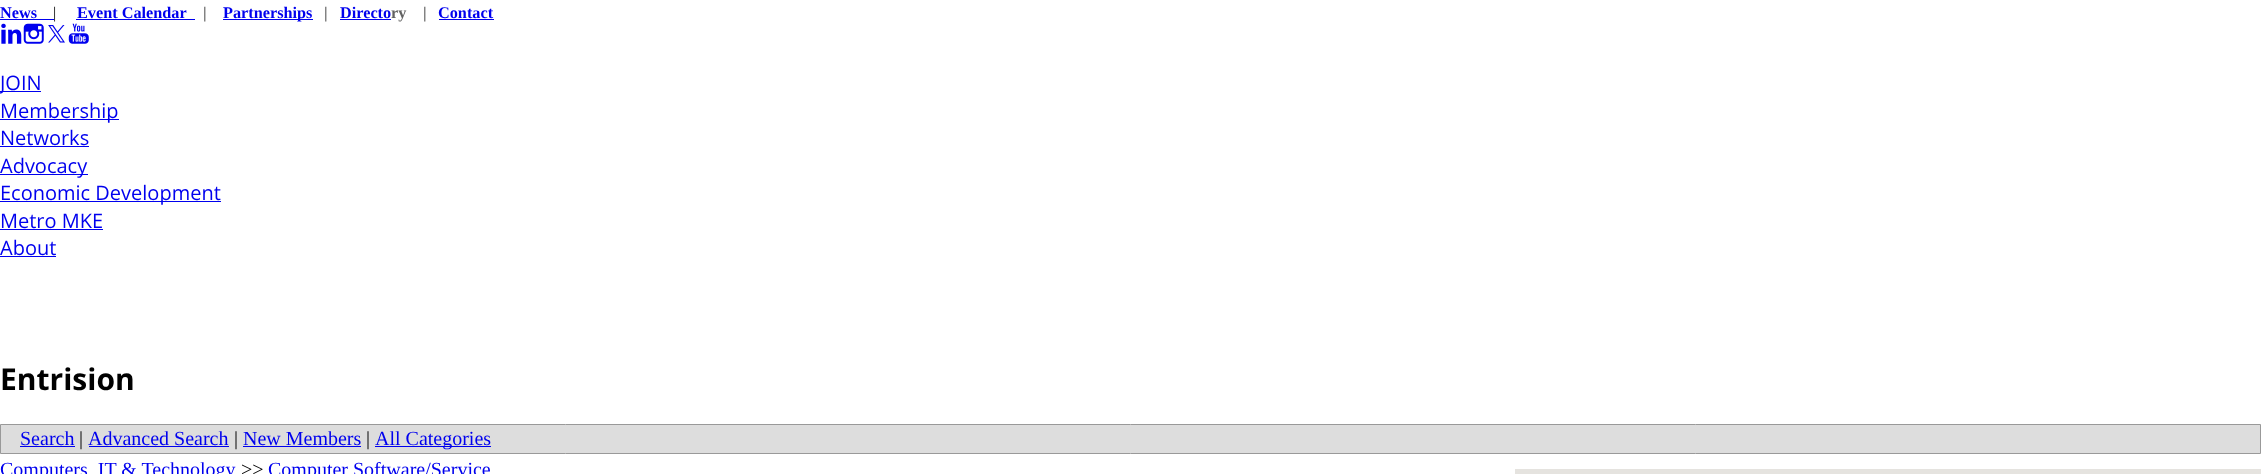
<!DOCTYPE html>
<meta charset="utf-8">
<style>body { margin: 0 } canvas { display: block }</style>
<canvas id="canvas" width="2261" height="474"></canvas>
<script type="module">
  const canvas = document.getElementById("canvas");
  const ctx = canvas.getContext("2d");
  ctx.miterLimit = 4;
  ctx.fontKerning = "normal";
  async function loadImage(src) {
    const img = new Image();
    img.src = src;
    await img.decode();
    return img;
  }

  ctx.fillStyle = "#ffffff";
  ctx.fillRect(0, 0, 2261, 474);
  ctx.font = "bold 16.25px Liberation Serif";
  ctx.fillStyle = "#0000ee";
  ctx.fillText("News", 0, 18);
  ctx.font = "16.25px Liberation Serif";
  ctx.fillStyle = "#000000";
  ctx.fillText("|", 53, 18);
  ctx.fillStyle = "#0000ee";
  ctx.fillRect(0, 19, 54, 1);
  ctx.font = "bold 16.25px Liberation Serif";
  ctx.fillText("Event Calendar", 77, 18);
  ctx.fillRect(76, 19, 119, 1);
  ctx.fillStyle = "#626262";
  ctx.fillText("|", 203, 18);
  ctx.fillStyle = "#0000ee";
  ctx.fillRect(223, 19, 90, 1);
  ctx.fillText("Partnerships", 223, 18);
  ctx.fillStyle = "#626262";
  ctx.fillText("|", 324, 18);
  ctx.fillStyle = "#0000ee";
  ctx.fillText("Directo", 340, 18);
  ctx.fillStyle = "#626262";
  ctx.fillText("ry", 391, 18);
  ctx.fillStyle = "#0000ee";
  ctx.fillRect(340, 19, 51, 1);
  ctx.fillStyle = "#626262";
  ctx.fillText("|", 423, 18);
  ctx.fillStyle = "#0000ee";
  ctx.fillText("Contact", 438, 18);
  ctx.fillRect(439, 19, 55, 1);
  ctx.drawImage(await loadImage("img1.png"), 1, 23, 21, 21);
  ctx.drawImage(await loadImage("img2.png"), 23, 23, 21, 21);
  ctx.drawImage(await loadImage("img3.png"), 48, 25, 17, 18);
  ctx.drawImage(await loadImage("img4.png"), 68, 23, 21, 21);
  ctx.fillRect(0, 91, 41, 1);
  ctx.font = "20px Open Sans";
  ctx.fillText("JOIN", 0, 90);
  ctx.fillRect(0, 119, 119, 1);
  ctx.fillText("Membership", 0, 118);
  ctx.fillText("Networks", 0, 145);
  ctx.fillRect(0, 146, 89, 1);
  ctx.fillRect(0, 174, 88, 1);
  ctx.fillText("Advocacy", 0, 173);
  ctx.fillRect(0, 201, 221, 1);
  ctx.fillText("Economic Development", 0, 200);
  ctx.fillText("Metro MKE", 0, 228);
  ctx.fillRect(0, 229, 103, 1);
  ctx.fillText("About", 0, 255);
  ctx.fillRect(0, 256, 56, 1);
  ctx.font = "bold 30px Open Sans";
  ctx.fillStyle = "#000000";
  ctx.fillText("Entrision", 0, 390);
  ctx.fillStyle = "#dddddd";
  ctx.beginPath();
  ctx.rect(0.5, 424.5, 2260, 29);
  ctx.fill();
  ctx.strokeStyle = "#999999";
  ctx.stroke();
  ctx.font = "20px Liberation Serif";
  ctx.fillStyle = "#0000ee";
  ctx.fillText("Search", 20, 445);
  ctx.fillRect(20, 446, 55, 1);
  ctx.fillStyle = "#000000";
  ctx.fillText("|", 79, 445);
  ctx.fillStyle = "#0000ee";
  ctx.fillText("Advanced Search", 88, 445);
  ctx.fillRect(89, 446, 140, 1);
  ctx.fillStyle = "#000000";
  ctx.fillText("|", 234, 445);
  ctx.fillStyle = "#0000ee";
  ctx.fillText("New Members", 243, 445);
  ctx.fillRect(243, 446, 118, 1);
  ctx.fillStyle = "#000000";
  ctx.fillText("|", 366, 445);
  ctx.fillStyle = "#0000ee";
  ctx.fillRect(375, 446, 116, 1);
  ctx.fillText("All Categories", 375, 445);
  ctx.fillText("Computers, IT & Technology", 0, 476);
  ctx.fillStyle = "#000000";
  ctx.fillText(">>", 241, 476);
  ctx.fillStyle = "#0000ee";
  ctx.fillText("Computer Software/Service", 268, 476);
  ctx.fillStyle = "#e5e3df";
  ctx.fillRect(1515, 469, 746, 5);
</script>
